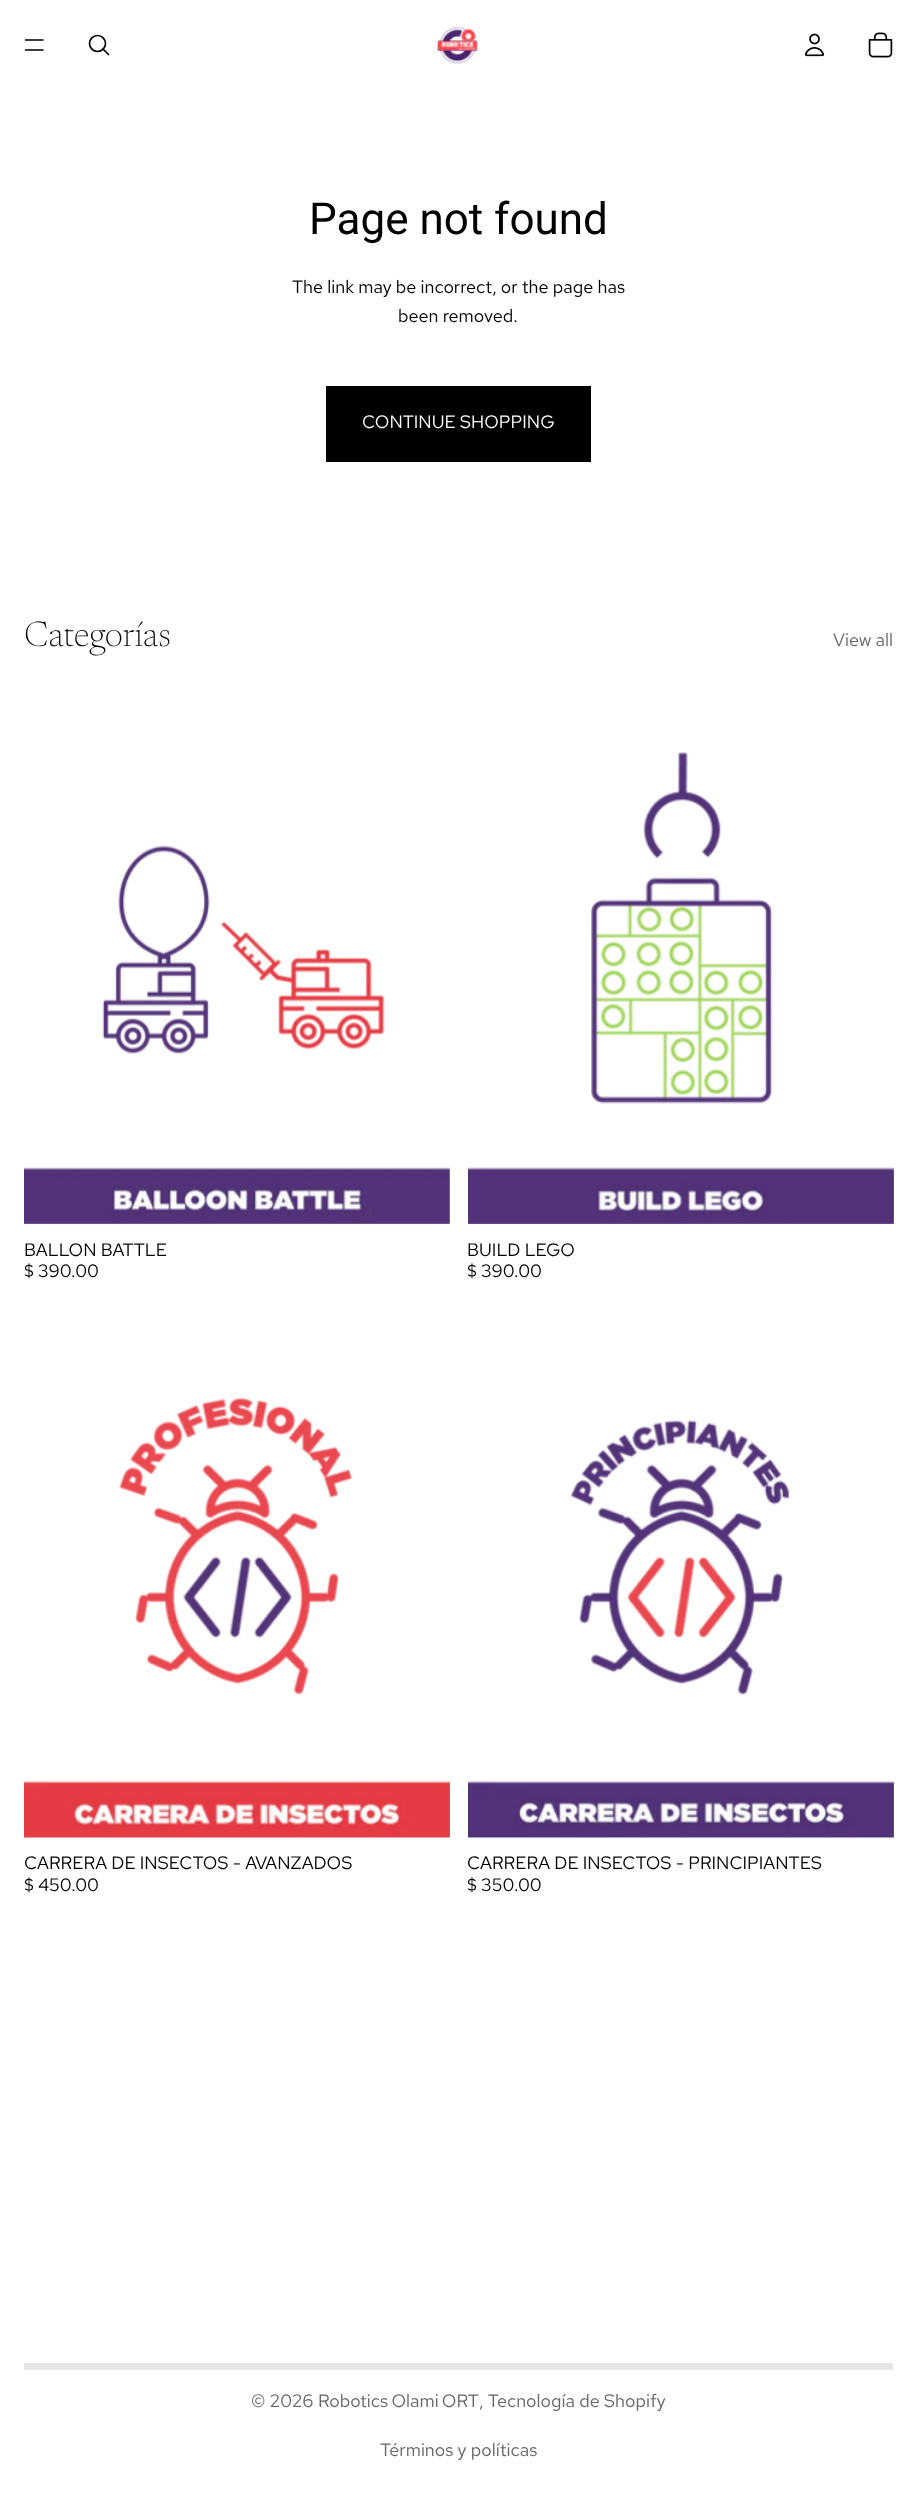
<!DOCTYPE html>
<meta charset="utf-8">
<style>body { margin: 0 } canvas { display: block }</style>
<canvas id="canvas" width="916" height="2518"></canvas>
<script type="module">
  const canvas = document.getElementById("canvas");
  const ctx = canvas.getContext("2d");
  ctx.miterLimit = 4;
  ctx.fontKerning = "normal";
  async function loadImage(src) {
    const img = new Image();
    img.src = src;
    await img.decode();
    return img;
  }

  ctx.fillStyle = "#ffffff";
  ctx.fillRect(0, 0, 916, 2518);
  ctx.beginPath();
  ctx.moveTo(25.5, 40);
  ctx.lineTo(43, 40);
  ctx.moveTo(25.5, 50);
  ctx.lineTo(43, 50);
  ctx.strokeStyle = "#000000";
  ctx.lineWidth = 1.5;
  ctx.lineCap = "round";
  ctx.stroke();
  ctx.beginPath();
  ctx.arc(97.5, 43.5, 8, 0, Math.PI * 2);
  ctx.lineWidth = 1.7;
  ctx.stroke();
  ctx.beginPath();
  ctx.moveTo(103, 49);
  ctx.lineTo(108.5, 54.5);
  ctx.lineJoin = "round";
  ctx.stroke();
  ctx.drawImage(await loadImage("img1.png"), 437, 26, 41, 38);
  ctx.drawImage(await loadImage("img2.png"), 804, 33, 21, 24);
  ctx.drawImage(await loadImage("img3.png"), 868, 32, 25, 26);
  ctx.font = "44px Roboto";
  ctx.fillStyle = "#000000";
  ctx.fillText("Page not found", 309, 234);
  ctx.font = "18px Red Hat Text";
  ctx.fillText("The link may be incorrect, or the page has", 292, 293);
  ctx.fillText("been removed.", 398, 322);
  ctx.fillRect(326, 386, 265, 76);
  ctx.fillStyle = "#ffffff";
  ctx.fillText("CONTINUE SHOPPING", 362, 428);
  ctx.font = "200 36px Newsreader";
  ctx.fillStyle = "#000000";
  ctx.fillText("Categorías", 24, 646);
  ctx.font = "18px Red Hat Text";
  ctx.fillStyle = "#666666";
  ctx.fillText("View all", 833, 646);
  ctx.drawImage(await loadImage("img4.png"), 24, 845, 426, 379);
  ctx.fillStyle = "#000000";
  ctx.fillText("BALLON BATTLE", 24, 1256);
  ctx.fillText("$ 390.00", 24, 1277);
  ctx.drawImage(await loadImage("img5.png"), 468, 752, 426, 472);
  ctx.fillText("BUILD LEGO", 467, 1256);
  ctx.fillText("$ 390.00", 467, 1277);
  ctx.drawImage(await loadImage("img6.png"), 24, 1397, 426, 441);
  ctx.fillText("CARRERA DE INSECTOS - AVANZADOS", 24, 1869);
  ctx.fillText("$ 450.00", 24, 1891);
  ctx.drawImage(await loadImage("img7.png"), 468, 1420, 426, 418);
  ctx.fillText("CARRERA DE INSECTOS - PRINCIPIANTES", 467, 1869);
  ctx.fillText("$ 350.00", 467, 1891);
  ctx.fillStyle = "#e6e6e6";
  ctx.fillRect(24, 2363, 869, 7);
  ctx.fillStyle = "#666666";
  ctx.fillText("© 2026", 251, 2407);
  ctx.wordSpacing = "-1px";
  ctx.fillText("Robotics Olami ORT", 318, 2407);
  ctx.wordSpacing = "0px";
  ctx.fillText(", Tecnología de Shopify", 479, 2407);
  ctx.fillText("Términos y políticas", 380, 2456);
</script>
